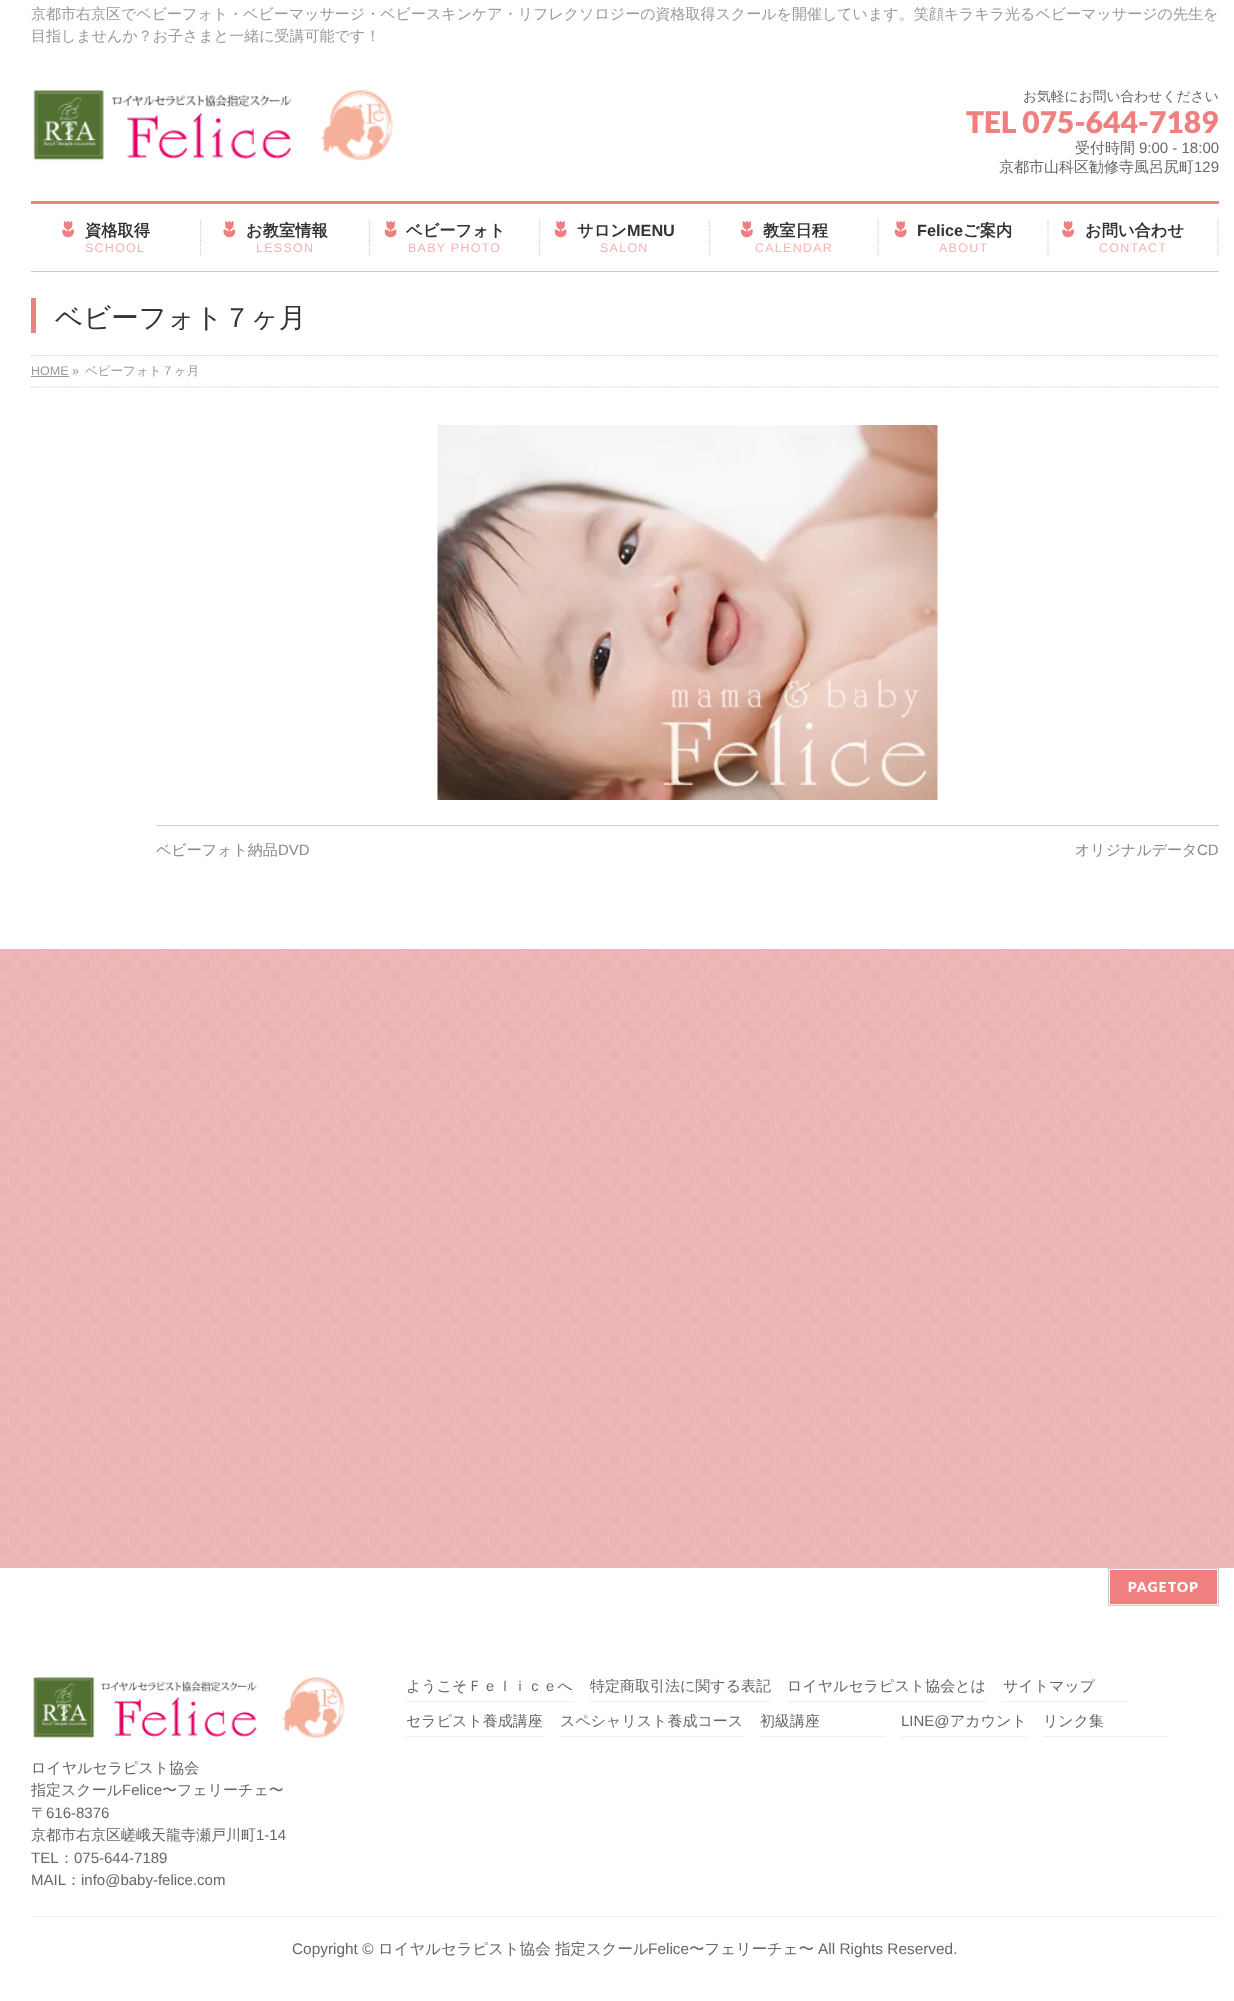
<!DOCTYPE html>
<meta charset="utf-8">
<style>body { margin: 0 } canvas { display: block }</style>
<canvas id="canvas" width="1234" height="2001"></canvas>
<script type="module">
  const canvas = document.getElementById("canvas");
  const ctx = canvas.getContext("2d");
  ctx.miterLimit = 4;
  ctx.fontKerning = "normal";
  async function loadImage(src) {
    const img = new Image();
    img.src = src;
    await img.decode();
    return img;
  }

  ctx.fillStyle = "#ffffff";
  ctx.fillRect(0, 0, 1234, 2001);
  ctx.drawImage(await loadImage("img1.png"), 0, 949, 1234, 619);
  ctx.font = "500 15px WenQuanYi Zen Hei";
  ctx.fillStyle = "#999999";
  ctx.fillText("京都市右京区でベビーフォト・ベビーマッサージ・ベビースキンケア・リフレクソロジーの資格取得スクールを開催しています。笑顔キラキラ光るベビーマッサージの先生を", 31, 19);
  ctx.fillText("目指しませんか？お子さまと一緒に受講可能です！", 31, 41);
  ctx.drawImage(await loadImage("img2.png"), 33, 89, 360, 72);
  ctx.font = "500 13.75px WenQuanYi Zen Hei";
  ctx.fillStyle = "#666666";
  ctx.fillText("お気軽にお問い合わせください", 1023, 101);
  ctx.font = "900 30px Lato";
  ctx.fillStyle = "#f08080";
  ctx.fillText("TEL 075-644-7189", 966, 133);
  ctx.font = "500 15px WenQuanYi Zen Hei";
  ctx.fillStyle = "#666666";
  ctx.fillText("受付時間", 1075, 153);
  ctx.font = "15px Liberation Sans";
  ctx.fillText("9:00 - 18:00", 1139, 153);
  ctx.font = "500 15px WenQuanYi Zen Hei";
  ctx.fillText("京都市山科区勧修寺風呂尻町", 999, 172);
  ctx.font = "15px Liberation Sans";
  ctx.fillText("129", 1194, 172);
  ctx.fillStyle = "#f08080";
  ctx.fillRect(31, 201, 1188, 3);
  ctx.fillStyle = "#cccccc";
  ctx.fillRect(31, 271, 1188, 1);
  ctx.beginPath();
  ctx.moveTo(200.5, 220);
  ctx.lineTo(200.5, 257.5);
  ctx.strokeStyle = "#cccccc";
  ctx.lineWidth = 1.2;
  ctx.setLineDash([1.25, 1.25]);
  ctx.stroke();
  ctx.drawImage(await loadImage("img3.png"), 62, 221, 12, 17);
  ctx.font = "bold 16.25px WenQuanYi Zen Hei";
  ctx.fillStyle = "#333333";
  ctx.fillText("資格取得", 85, 236);
  ctx.letterSpacing = "1.25px";
  ctx.font = "12.5px Liberation Sans";
  ctx.fillStyle = "#f6b3b3";
  ctx.fillText("SCHOOL", 85, 252);
  ctx.beginPath();
  ctx.moveTo(369.5, 220);
  ctx.lineTo(369.5, 257.5);
  ctx.stroke();
  ctx.drawImage(await loadImage("img4.png"), 223, 221, 13, 17);
  ctx.letterSpacing = "0px";
  ctx.font = "bold 16.25px WenQuanYi Zen Hei";
  ctx.fillStyle = "#333333";
  ctx.fillText("お教室情報", 246, 236);
  ctx.letterSpacing = "1.25px";
  ctx.font = "12.5px Liberation Sans";
  ctx.fillStyle = "#f6b3b3";
  ctx.fillText("LESSON", 256, 252);
  ctx.beginPath();
  ctx.moveTo(539.5, 220);
  ctx.lineTo(539.5, 257.5);
  ctx.stroke();
  ctx.drawImage(await loadImage("img5.png"), 384, 221, 13, 17);
  ctx.letterSpacing = "0px";
  ctx.font = "bold 16.25px WenQuanYi Zen Hei";
  ctx.fillStyle = "#333333";
  ctx.fillText("ベビーフォト", 406, 236);
  ctx.letterSpacing = "1.25px";
  ctx.font = "12.5px Liberation Sans";
  ctx.fillStyle = "#f6b3b3";
  ctx.fillText("BABY PHOTO", 408, 252);
  ctx.beginPath();
  ctx.moveTo(709.5, 220);
  ctx.lineTo(709.5, 257.5);
  ctx.stroke();
  ctx.drawImage(await loadImage("img5.png"), 554, 221, 13, 17);
  ctx.letterSpacing = "0px";
  ctx.font = "bold 16.25px WenQuanYi Zen Hei";
  ctx.fillStyle = "#333333";
  ctx.fillText("サロン", 577, 236);
  ctx.font = "bold 16.25px Liberation Sans";
  ctx.fillText("MENU", 627, 236);
  ctx.letterSpacing = "1.25px";
  ctx.font = "12.5px Liberation Sans";
  ctx.fillStyle = "#f6b3b3";
  ctx.fillText("SALON", 600, 252);
  ctx.beginPath();
  ctx.moveTo(878, 220);
  ctx.lineTo(878, 257.5);
  ctx.stroke();
  ctx.drawImage(await loadImage("img6.png"), 741, 221, 12, 17);
  ctx.letterSpacing = "0px";
  ctx.font = "bold 16.25px WenQuanYi Zen Hei";
  ctx.fillStyle = "#333333";
  ctx.fillText("教室日程", 763, 236);
  ctx.letterSpacing = "1.25px";
  ctx.font = "12.5px Liberation Sans";
  ctx.fillStyle = "#f6b3b3";
  ctx.fillText("CALENDAR", 755, 252);
  ctx.beginPath();
  ctx.moveTo(1048, 220);
  ctx.lineTo(1048, 257.5);
  ctx.stroke();
  ctx.drawImage(await loadImage("img5.png"), 894, 221, 13, 17);
  ctx.letterSpacing = "0px";
  ctx.font = "bold 16.25px Liberation Sans";
  ctx.fillStyle = "#333333";
  ctx.fillText("Felice", 917, 236);
  ctx.font = "bold 16.25px WenQuanYi Zen Hei";
  ctx.fillText("ご案内", 963, 236);
  ctx.letterSpacing = "1.25px";
  ctx.font = "12.5px Liberation Sans";
  ctx.fillStyle = "#f6b3b3";
  ctx.fillText("ABOUT", 939, 252);
  ctx.beginPath();
  ctx.moveTo(1218, 220);
  ctx.lineTo(1218, 257.5);
  ctx.stroke();
  ctx.drawImage(await loadImage("img3.png"), 1062, 221, 12, 17);
  ctx.letterSpacing = "0px";
  ctx.font = "bold 16.25px WenQuanYi Zen Hei";
  ctx.fillStyle = "#333333";
  ctx.fillText("お問い合わせ", 1085, 236);
  ctx.letterSpacing = "1.25px";
  ctx.font = "12.5px Liberation Sans";
  ctx.fillStyle = "#f6b3b3";
  ctx.fillText("CONTACT", 1099, 252);
  ctx.fillStyle = "#f08080";
  ctx.fillRect(31, 298, 5, 35);
  ctx.letterSpacing = "0px";
  ctx.font = "500 27.5px WenQuanYi Zen Hei";
  ctx.fillStyle = "#333333";
  ctx.fillText("ベビーフォト７ヶ月", 55, 327);
  ctx.save();
  ctx.beginPath();
  ctx.rect(0, 355, 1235, 33);
  ctx.clip();
  ctx.beginPath();
  ctx.moveTo(31, 355.5);
  ctx.lineTo(1219, 355.5);
  ctx.stroke();
  ctx.restore();
  ctx.beginPath();
  ctx.moveTo(31, 387);
  ctx.lineTo(1219, 387);
  ctx.stroke();
  ctx.font = "12.5px Liberation Sans";
  ctx.fillStyle = "#999999";
  ctx.fillText("HOME »", 31, 375);
  ctx.fillRect(31, 376, 38, 1);
  ctx.font = "500 12.5px WenQuanYi Zen Hei";
  ctx.fillText("ベビーフォト７ヶ月", 85, 375);
  ctx.drawImage(await loadImage("img7.png"), 437, 425, 501, 375);
  ctx.fillStyle = "#cccccc";
  ctx.fillRect(156, 825, 1063, 1);
  ctx.font = "500 15px WenQuanYi Zen Hei";
  ctx.fillStyle = "#888888";
  ctx.fillText("ベビーフォト納品", 156, 855);
  ctx.font = "15px Liberation Sans";
  ctx.fillText("DVD", 278, 855);
  ctx.font = "500 15px WenQuanYi Zen Hei";
  ctx.fillText("オリジナルデータ", 1075, 855);
  ctx.font = "15px Liberation Sans";
  ctx.fillText("CD", 1197, 855);
  ctx.fillStyle = "#f08080";
  ctx.beginPath();
  ctx.rect(1109.5, 1569.5, 108, 35);
  ctx.fill();
  ctx.strokeStyle = "#fef2f2";
  ctx.lineWidth = 1;
  ctx.setLineDash([]);
  ctx.stroke();
  ctx.strokeStyle = "#cccccc";
  ctx.strokeRect(1108.5, 1568.5, 110, 37);
  ctx.letterSpacing = "1.25px";
  ctx.font = "900 13.75px Lato";
  ctx.fillStyle = "#ffffff";
  ctx.fillText("PAGETOP", 1128, 1592);
  ctx.fillStyle = "#efefef";
  ctx.fillRect(406, 1701, 167, 1);
  ctx.letterSpacing = "0px";
  ctx.font = "500 15px WenQuanYi Zen Hei";
  ctx.fillStyle = "#666666";
  ctx.fillText("ようこそＦｅｌｉｃｅへ", 406, 1691);
  ctx.fillStyle = "#efefef";
  ctx.fillRect(590, 1701, 181, 1);
  ctx.save();
  ctx.beginPath();
  ctx.rect(590, 1679, 181, 22);
  ctx.clip();
  ctx.fillStyle = "#666666";
  ctx.fillText("特定商取引法に関する表記", 590, 1691);
  ctx.restore();
  ctx.fillRect(788, 1701, 198, 1);
  ctx.save();
  ctx.beginPath();
  ctx.rect(788, 1679, 198, 22);
  ctx.clip();
  ctx.fillStyle = "#666666";
  ctx.fillText("ロイヤルセラピスト協会とは", 787, 1691);
  ctx.restore();
  ctx.fillRect(1003, 1701, 125, 1);
  ctx.save();
  ctx.beginPath();
  ctx.rect(1003, 1679, 125, 22);
  ctx.clip();
  ctx.fillStyle = "#666666";
  ctx.fillText("サイトマップ", 1003, 1691);
  ctx.restore();
  ctx.fillRect(406, 1736, 137, 1);
  ctx.save();
  ctx.beginPath();
  ctx.rect(406, 1714, 137, 22);
  ctx.clip();
  ctx.fillStyle = "#666666";
  ctx.fillText("セラピスト養成講座", 406, 1726);
  ctx.restore();
  ctx.fillRect(560, 1736, 183, 1);
  ctx.save();
  ctx.beginPath();
  ctx.rect(560, 1714, 183, 22);
  ctx.clip();
  ctx.fillStyle = "#666666";
  ctx.fillText("スペシャリスト養成コース", 560, 1726);
  ctx.restore();
  ctx.fillRect(760, 1736, 125, 1);
  ctx.save();
  ctx.beginPath();
  ctx.rect(760, 1714, 125, 22);
  ctx.clip();
  ctx.fillStyle = "#666666";
  ctx.fillText("初級講座", 760, 1726);
  ctx.restore();
  ctx.fillRect(901, 1736, 125, 1);
  ctx.font = "15px Liberation Sans";
  ctx.fillStyle = "#666666";
  ctx.fillText("LINE@", 901, 1726);
  ctx.font = "500 15px WenQuanYi Zen Hei";
  ctx.fillText("アカウント", 950, 1726);
  ctx.fillStyle = "#efefef";
  ctx.fillRect(1044, 1736, 125, 1);
  ctx.fillStyle = "#666666";
  ctx.fillText("リンク集", 1043, 1726);
  ctx.drawImage(await loadImage("img8.png"), 33, 1677, 312, 61);
  ctx.fillText("ロイヤルセラピスト協会", 31, 1773);
  ctx.fillText("指定スクール", 31, 1795);
  ctx.font = "15px Liberation Sans";
  ctx.fillText("Felice", 122, 1795);
  ctx.font = "500 15px WenQuanYi Zen Hei";
  ctx.fillText("〜フェリーチェ〜", 162, 1795);
  ctx.fillText("〒", 31, 1818);
  ctx.font = "15px Liberation Sans";
  ctx.fillText("616-8376", 46, 1818);
  ctx.font = "500 15px WenQuanYi Zen Hei";
  ctx.fillText("京都市右京区嵯峨天龍寺瀬戸川町", 31, 1840);
  ctx.font = "15px Liberation Sans";
  ctx.fillText("1-14", 256, 1840);
  ctx.fillText("TEL", 31, 1863);
  ctx.font = "500 15px WenQuanYi Zen Hei";
  ctx.fillText("：", 59, 1863);
  ctx.font = "15px Liberation Sans";
  ctx.fillText("075-644-7189", 74, 1863);
  ctx.fillText("MAIL", 31, 1885);
  ctx.font = "500 15px WenQuanYi Zen Hei";
  ctx.fillText("：", 66, 1885);
  ctx.font = "15px Liberation Sans";
  ctx.fillText("info@baby-felice.com", 81, 1885);
  ctx.fillStyle = "#efefef";
  ctx.fillRect(31, 1916, 1188, 1);
  ctx.font = "15.4px Liberation Sans";
  ctx.fillStyle = "#666666";
  ctx.fillText("Copyright ©", 292, 1954);
  ctx.font = "500 15.4px WenQuanYi Zen Hei";
  ctx.fillText("ロイヤルセラピスト協会 指定スクール", 378, 1954);
  ctx.font = "15.4px Liberation Sans";
  ctx.fillText("Felice", 648, 1954);
  ctx.font = "500 15.4px WenQuanYi Zen Hei";
  ctx.fillText("〜フェリーチェ〜", 689, 1954);
  ctx.font = "15.4px Liberation Sans";
  ctx.fillText("All Rights Reserved.", 818, 1954);
</script>
